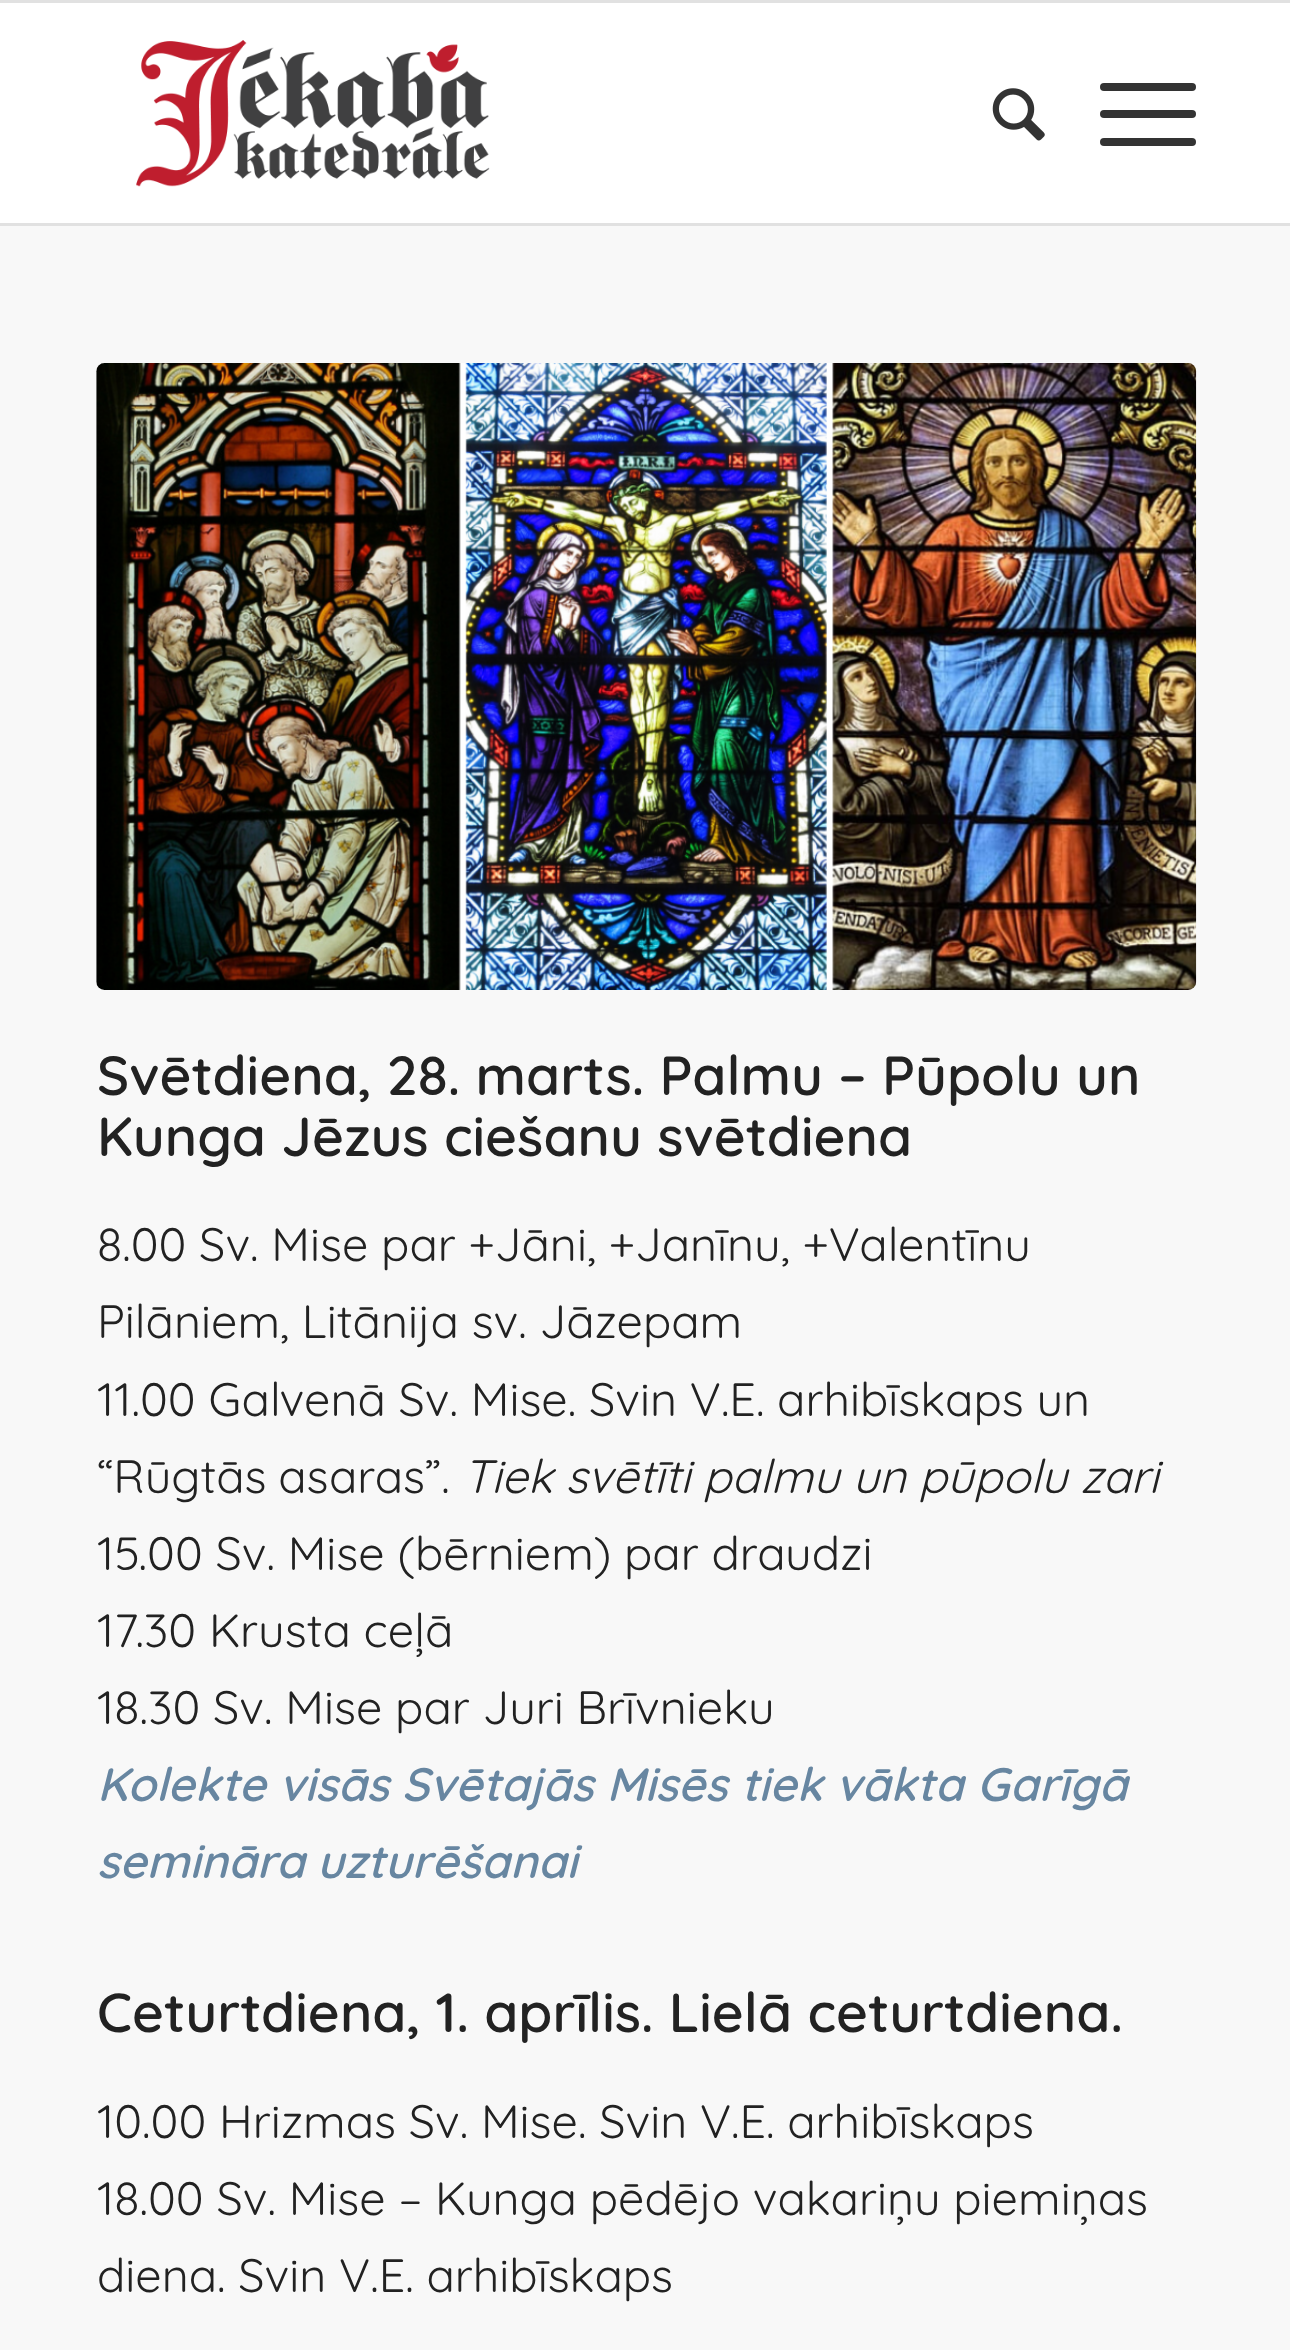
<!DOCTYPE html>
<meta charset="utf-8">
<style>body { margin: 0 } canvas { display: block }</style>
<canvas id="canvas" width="1290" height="2350"></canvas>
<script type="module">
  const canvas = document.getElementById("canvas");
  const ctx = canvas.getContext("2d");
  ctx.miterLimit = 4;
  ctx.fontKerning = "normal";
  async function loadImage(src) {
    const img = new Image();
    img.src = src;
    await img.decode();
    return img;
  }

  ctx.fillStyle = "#f8f8f8";
  ctx.fillRect(0, 0, 1290, 2350);
  ctx.fillStyle = "#e1e1e1";
  ctx.fillRect(0, 0, 1290, 3);
  ctx.fillRect(0, 223, 1290, 3);
  ctx.fillStyle = "#ffffff";
  ctx.fillRect(0, 3, 1290, 220);
  ctx.drawImage(await loadImage("img1.png"), 136, 40, 354, 147);
  ctx.drawImage(await loadImage("img2.png"), 992, 88, 53, 53);
  ctx.fillStyle = "#333333";
  ctx.beginPath();
  ctx.roundRect(1100, 110, 96, 8, 4);
  ctx.fill();
  ctx.beginPath();
  ctx.roundRect(1100, 83, 96, 8, 4);
  ctx.fill();
  ctx.beginPath();
  ctx.roundRect(1100, 138, 96, 8, 4);
  ctx.fill();
  ctx.drawImage(await loadImage("img3.png"), 96, 363, 1101, 627);
  ctx.font = "600 55px Quicksand";
  ctx.fillStyle = "#222222";
  ctx.fillText("Svētdiena, 28. marts. Palmu – Pūpolu un", 97, 1095);
  ctx.fillText("Kunga Jēzus ciešanu svētdiena", 97, 1156);
  ctx.font = "46.75px Quicksand";
  ctx.fillText("8.00 Sv. Mise par +Jāni, +Janīnu, +Valentīnu", 97, 1261);
  ctx.fillText("Pilāniem, Litānija sv. Jāzepam", 97, 1338);
  ctx.fillText("11.00 Galvenā Sv. Mise. Svin V.E. arhibīskaps un", 97, 1416);
  ctx.wordSpacing = "-1px";
  ctx.fillText("“Rūgtās asaras”.", 97, 1493);
  ctx.wordSpacing = "0px";
  ctx.font = "italic 46.75px Quicksand";
  ctx.fillText("Tiek svētīti palmu un pūpolu zari", 463, 1493);
  ctx.font = "46.75px Quicksand";
  ctx.fillText("15.00 Sv. Mise (bērniem) par draudzi", 97, 1570);
  ctx.fillText("17.30 Krusta ceļā", 97, 1647);
  ctx.fillText("18.30 Sv. Mise par Juri Brīvnieku", 97, 1724);
  ctx.font = "italic 600 46.75px Quicksand";
  ctx.fillStyle = "#6786a1";
  ctx.fillText("Kolekte visās Svētajās Misēs tiek vākta Garīgā", 97, 1801);
  ctx.wordSpacing = "-1px";
  ctx.fillText("semināra uzturēšanai", 97, 1878);
  ctx.wordSpacing = "0px";
  ctx.font = "600 55px Quicksand";
  ctx.fillStyle = "#222222";
  ctx.fillText("Ceturtdiena, 1. aprīlis. Lielā ceturtdiena.", 97, 2032);
  ctx.font = "46.75px Quicksand";
  ctx.fillText("10.00 Hrizmas Sv. Mise. Svin V.E. arhibīskaps", 97, 2138);
  ctx.fillText("18.00 Sv. Mise – Kunga pēdējo vakariņu piemiņas", 97, 2215);
  ctx.fillText("diena. Svin V.E. arhibīskaps", 97, 2292);
</script>
